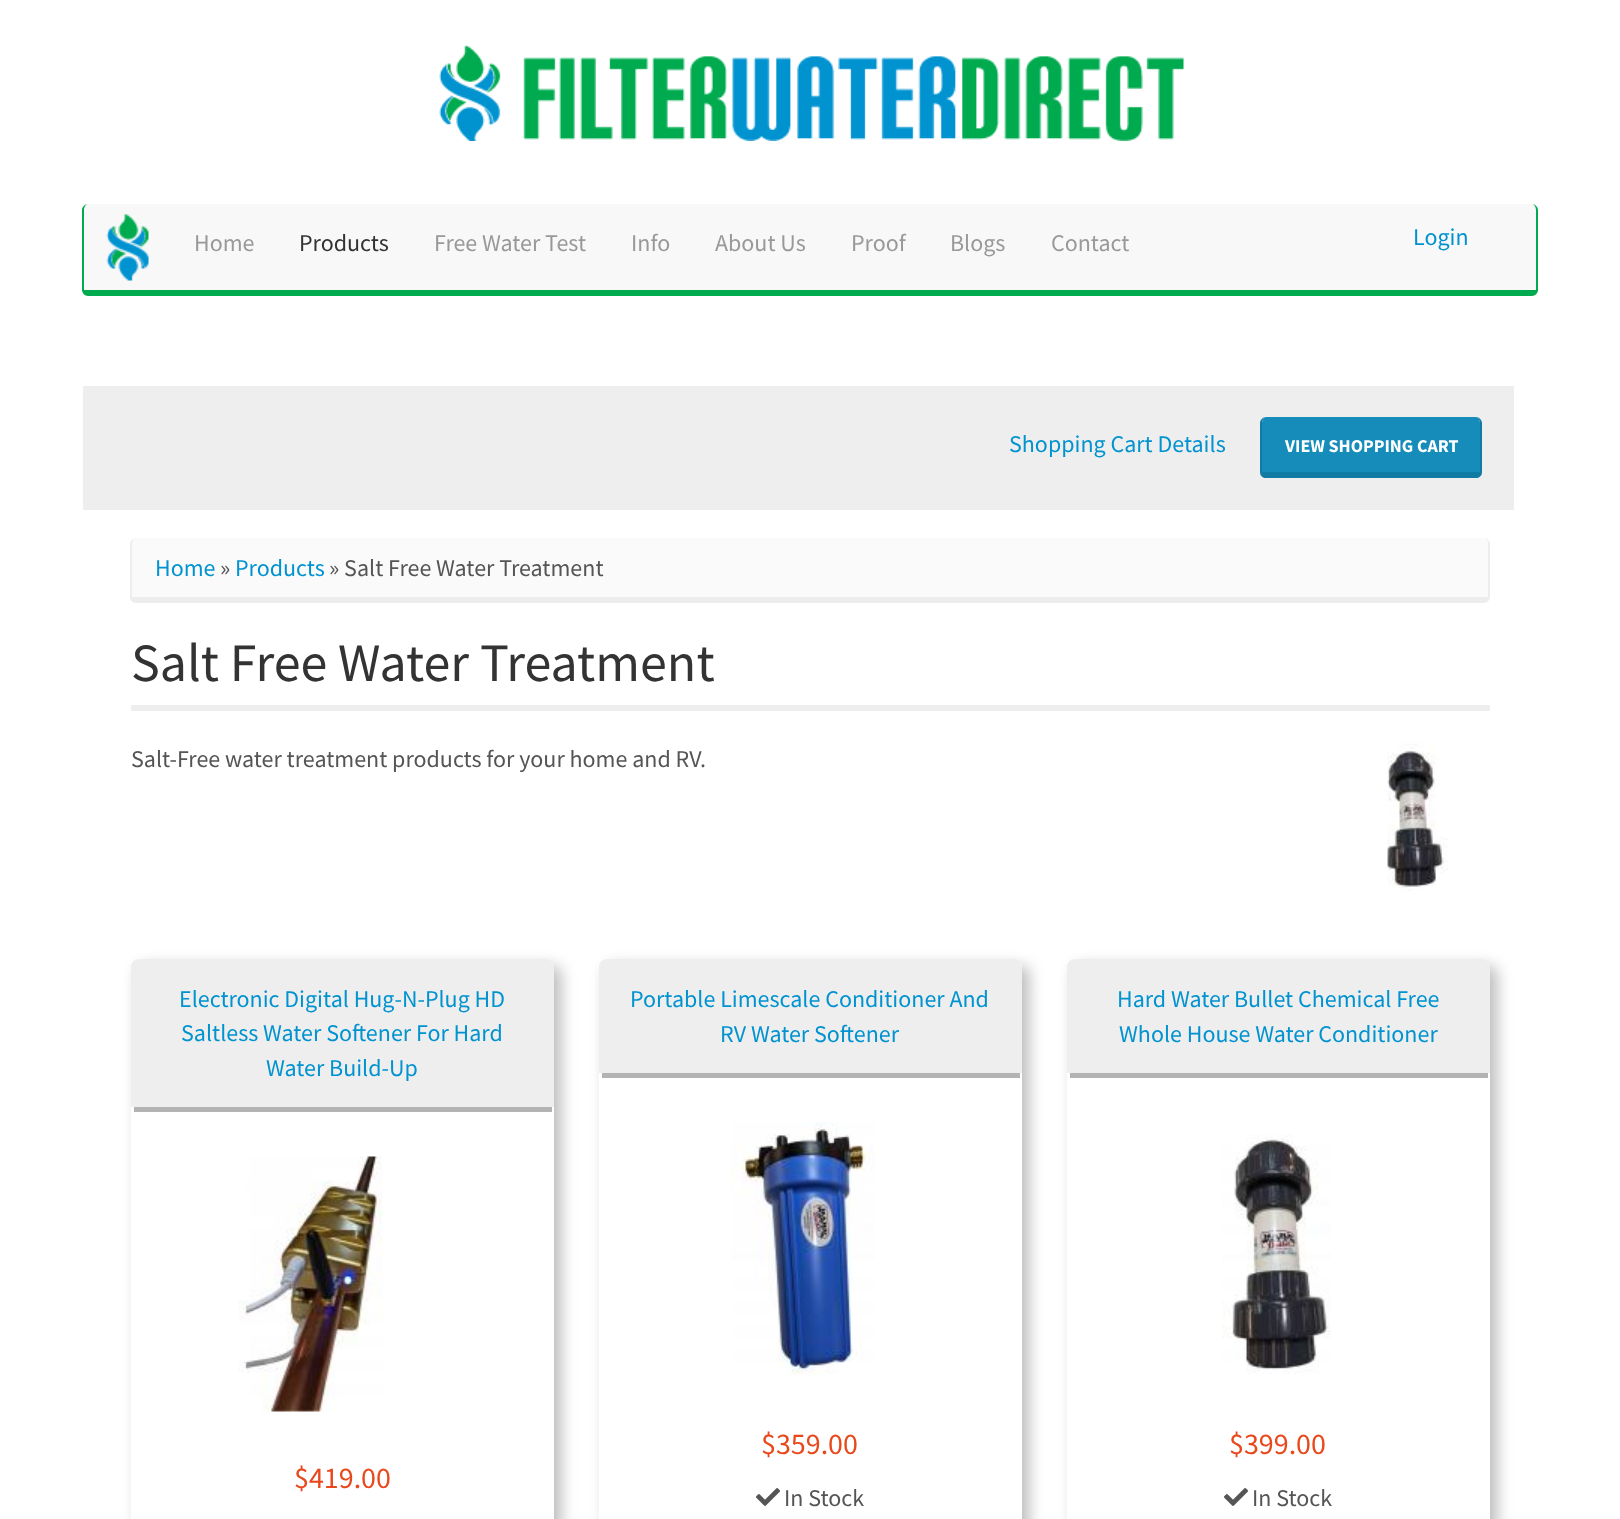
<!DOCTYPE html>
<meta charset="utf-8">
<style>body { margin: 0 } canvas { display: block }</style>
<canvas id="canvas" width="1620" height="1519"></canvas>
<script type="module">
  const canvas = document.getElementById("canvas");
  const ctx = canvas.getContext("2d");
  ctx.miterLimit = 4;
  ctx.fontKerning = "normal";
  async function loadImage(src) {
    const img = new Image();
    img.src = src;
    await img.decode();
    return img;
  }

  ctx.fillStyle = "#ffffff";
  ctx.fillRect(0, 0, 1620, 1519);
  ctx.drawImage(await loadImage("img1.png"), 439, 45, 745, 96);
  ctx.fillStyle = "#f8f8f8";
  ctx.beginPath();
  ctx.moveTo(88, 204);
  ctx.lineTo(1532, 204);
  ctx.bezierCurveTo(1534, 204, 1536, 207, 1536, 210);
  ctx.lineTo(1536, 290);
  ctx.lineTo(84, 290);
  ctx.lineTo(84, 210);
  ctx.bezierCurveTo(84, 207, 86, 204, 88, 204);
  ctx.closePath();
  ctx.fill();
  ctx.fillStyle = "#00aa4f";
  ctx.beginPath();
  ctx.moveTo(88, 204);
  ctx.lineTo(1532, 204);
  ctx.bezierCurveTo(1535, 204, 1538, 207, 1538, 210);
  ctx.lineTo(1538, 290);
  ctx.bezierCurveTo(1538, 293, 1535, 296, 1532, 296);
  ctx.lineTo(88, 296);
  ctx.bezierCurveTo(85, 296, 82, 293, 82, 290);
  ctx.lineTo(82, 210);
  ctx.bezierCurveTo(82, 207, 85, 204, 88, 204);
  ctx.closePath();
  ctx.moveTo(88, 204);
  ctx.lineTo(1532, 204);
  ctx.bezierCurveTo(1534, 204, 1536, 207, 1536, 210);
  ctx.lineTo(1536, 290);
  ctx.lineTo(84, 290);
  ctx.lineTo(84, 210);
  ctx.bezierCurveTo(84, 207, 86, 204, 88, 204);
  ctx.closePath();
  ctx.fill("evenodd");
  ctx.drawImage(await loadImage("img2.png"), 106, 214, 43, 67);
  ctx.font = "24px Source Sans Pro";
  ctx.fillStyle = "#999999";
  ctx.fillText("Home", 194, 251);
  ctx.fillStyle = "#333333";
  ctx.fillText("Products", 299, 251);
  ctx.fillStyle = "#999999";
  ctx.fillText("Free Water Test", 434, 251);
  ctx.fillText("Info", 631, 251);
  ctx.fillText("About Us", 715, 251);
  ctx.fillText("Proof", 851, 251);
  ctx.fillText("Blogs", 950, 251);
  ctx.fillText("Contact", 1051, 251);
  ctx.fillStyle = "#0093d0";
  ctx.fillText("Login", 1413, 245);
  ctx.fillStyle = "#eeeeee";
  ctx.fillRect(83, 386, 1431, 124);
  ctx.fillStyle = "#0093d0";
  ctx.fillText("Shopping Cart Details", 1009, 452);
  ctx.fillStyle = "#158cba";
  ctx.beginPath();
  ctx.moveTo(1266, 417);
  ctx.lineTo(1476, 417);
  ctx.bezierCurveTo(1478, 417, 1480, 420, 1480, 423);
  ctx.lineTo(1480, 472);
  ctx.lineTo(1262, 472);
  ctx.lineTo(1262, 423);
  ctx.bezierCurveTo(1262, 420, 1264, 417, 1266, 417);
  ctx.closePath();
  ctx.fill();
  ctx.fillStyle = "#127ba3";
  ctx.beginPath();
  ctx.moveTo(1266, 417);
  ctx.lineTo(1476, 417);
  ctx.bezierCurveTo(1479, 417, 1482, 420, 1482, 423);
  ctx.lineTo(1482, 472);
  ctx.bezierCurveTo(1482, 476, 1479, 478, 1476, 478);
  ctx.lineTo(1266, 478);
  ctx.bezierCurveTo(1263, 478, 1260, 476, 1260, 472);
  ctx.lineTo(1260, 423);
  ctx.bezierCurveTo(1260, 420, 1263, 417, 1266, 417);
  ctx.closePath();
  ctx.moveTo(1266, 417);
  ctx.lineTo(1476, 417);
  ctx.bezierCurveTo(1478, 417, 1480, 420, 1480, 423);
  ctx.lineTo(1480, 472);
  ctx.lineTo(1262, 472);
  ctx.lineTo(1262, 423);
  ctx.bezierCurveTo(1262, 420, 1264, 417, 1266, 417);
  ctx.closePath();
  ctx.fill("evenodd");
  ctx.font = "bold 18px Source Sans Pro";
  ctx.fillStyle = "#ffffff";
  ctx.fillText("VIEW SHOPPING CART", 1285, 452);
  ctx.fillStyle = "#fafafa";
  ctx.beginPath();
  ctx.moveTo(136, 538);
  ctx.lineTo(1484, 538);
  ctx.bezierCurveTo(1486, 538, 1488, 541, 1488, 544);
  ctx.lineTo(1488, 597);
  ctx.lineTo(132, 597);
  ctx.lineTo(132, 544);
  ctx.bezierCurveTo(132, 541, 134, 538, 136, 538);
  ctx.closePath();
  ctx.fill();
  ctx.fillStyle = "#ededed";
  ctx.beginPath();
  ctx.moveTo(136, 538);
  ctx.lineTo(1484, 538);
  ctx.bezierCurveTo(1487, 538, 1490, 541, 1490, 544);
  ctx.lineTo(1490, 597);
  ctx.bezierCurveTo(1490, 600, 1487, 603, 1484, 603);
  ctx.lineTo(136, 603);
  ctx.bezierCurveTo(133, 603, 130, 600, 130, 597);
  ctx.lineTo(130, 544);
  ctx.bezierCurveTo(130, 541, 133, 538, 136, 538);
  ctx.closePath();
  ctx.moveTo(136, 538);
  ctx.lineTo(1484, 538);
  ctx.bezierCurveTo(1486, 538, 1488, 541, 1488, 544);
  ctx.lineTo(1488, 597);
  ctx.lineTo(132, 597);
  ctx.lineTo(132, 544);
  ctx.bezierCurveTo(132, 541, 134, 538, 136, 538);
  ctx.closePath();
  ctx.fill("evenodd");
  ctx.font = "24px Source Sans Pro";
  ctx.fillStyle = "#0093d0";
  ctx.fillText("Home", 155, 576);
  ctx.fillStyle = "#555555";
  ctx.fillText("»", 220, 576);
  ctx.fillStyle = "#0093d0";
  ctx.fillText("Products", 235, 576);
  ctx.fillStyle = "#555555";
  ctx.fillText("» Salt Free Water Treatment", 329, 576);
  ctx.fillStyle = "#eeeeee";
  ctx.fillRect(131, 705, 1359, 6);
  ctx.font = "54px Source Sans Pro";
  ctx.fillStyle = "#333333";
  ctx.fillText("Salt Free Water Treatment", 131, 681);
  ctx.font = "24px Source Sans Pro";
  ctx.fillStyle = "#555555";
  ctx.fillText("Salt-Free water treatment products for your home and RV.", 131, 767);
  ctx.drawImage(await loadImage("img3.png"), 1387, 741, 61, 150);
  ctx.save();
  ctx.beginPath();
  ctx.moveTo(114, 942);
  ctx.lineTo(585, 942);
  ctx.lineTo(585, 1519);
  ctx.lineTo(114, 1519);
  ctx.closePath();
  ctx.moveTo(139, 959);
  ctx.lineTo(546, 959);
  ctx.bezierCurveTo(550.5, 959, 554, 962.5, 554, 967);
  ctx.lineTo(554, 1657);
  ctx.bezierCurveTo(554, 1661.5, 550.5, 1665, 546, 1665);
  ctx.lineTo(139, 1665);
  ctx.bezierCurveTo(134.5, 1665, 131, 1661.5, 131, 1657);
  ctx.lineTo(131, 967);
  ctx.bezierCurveTo(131, 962.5, 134.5, 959, 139, 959);
  ctx.closePath();
  ctx.clip("evenodd");
  ctx.fillStyle = "#bbbbbb";
  ctx.filter = "blur(7.5px)";
  ctx.beginPath();
  ctx.roundRect(138, 966, 423, 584, 8);
  ctx.fill();
  ctx.filter = "none";
  ctx.restore();
  ctx.fillStyle = "#b3b3b3";
  ctx.fillRect(134, 1107, 418, 5);
  ctx.fillStyle = "#eeeeee";
  ctx.beginPath();
  ctx.roundRect(131, 959, 423, 148, [8, 8, 0, 0]);
  ctx.fill();
  ctx.fillStyle = "#0093d0";
  ctx.fillText("Electronic Digital Hug-N-Plug HD", 179, 1007);
  ctx.fillText("Saltless Water Softener For Hard", 181, 1041);
  ctx.fillText("Water Build-Up", 266, 1076);
  ctx.drawImage(await loadImage("img4.png"), 238, 1156, 145, 256);
  ctx.font = "30px Source Sans Pro";
  ctx.fillStyle = "#e8481c";
  ctx.fillText("$419.00", 294, 1488);
  ctx.save();
  ctx.beginPath();
  ctx.moveTo(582, 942);
  ctx.lineTo(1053, 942);
  ctx.lineTo(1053, 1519);
  ctx.lineTo(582, 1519);
  ctx.closePath();
  ctx.moveTo(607, 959);
  ctx.lineTo(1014, 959);
  ctx.bezierCurveTo(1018.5, 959, 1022, 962.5, 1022, 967);
  ctx.lineTo(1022, 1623);
  ctx.bezierCurveTo(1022, 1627.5, 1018.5, 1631, 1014, 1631);
  ctx.lineTo(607, 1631);
  ctx.bezierCurveTo(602.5, 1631, 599, 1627.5, 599, 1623);
  ctx.lineTo(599, 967);
  ctx.bezierCurveTo(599, 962.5, 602.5, 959, 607, 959);
  ctx.closePath();
  ctx.clip("evenodd");
  ctx.fillStyle = "#bbbbbb";
  ctx.filter = "blur(7.5px)";
  ctx.beginPath();
  ctx.roundRect(606, 966, 423, 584, 8);
  ctx.fill();
  ctx.filter = "none";
  ctx.restore();
  ctx.fillStyle = "#b3b3b3";
  ctx.fillRect(602, 1073, 418, 5);
  ctx.fillStyle = "#eeeeee";
  ctx.beginPath();
  ctx.roundRect(599, 959, 423, 114, [8, 8, 0, 0]);
  ctx.fill();
  ctx.font = "24px Source Sans Pro";
  ctx.fillStyle = "#0093d0";
  ctx.fillText("Portable Limescale Conditioner And", 630, 1007);
  ctx.fillText("RV Water Softener", 720, 1042);
  ctx.drawImage(await loadImage("img5.png"), 731, 1122, 144, 255);
  ctx.font = "30px Source Sans Pro";
  ctx.fillStyle = "#e8481c";
  ctx.fillText("$359.00", 761, 1454);
  ctx.drawImage(await loadImage("img6.png"), 756, 1488, 24, 18);
  ctx.font = "24px Source Sans Pro";
  ctx.fillStyle = "#555555";
  ctx.fillText("In Stock", 784, 1506);
  ctx.save();
  ctx.beginPath();
  ctx.moveTo(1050, 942);
  ctx.lineTo(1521, 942);
  ctx.lineTo(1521, 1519);
  ctx.lineTo(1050, 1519);
  ctx.closePath();
  ctx.moveTo(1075, 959);
  ctx.lineTo(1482, 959);
  ctx.bezierCurveTo(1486.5, 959, 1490, 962.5, 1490, 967);
  ctx.lineTo(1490, 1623);
  ctx.bezierCurveTo(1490, 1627.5, 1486.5, 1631, 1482, 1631);
  ctx.lineTo(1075, 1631);
  ctx.bezierCurveTo(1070.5, 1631, 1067, 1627.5, 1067, 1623);
  ctx.lineTo(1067, 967);
  ctx.bezierCurveTo(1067, 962.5, 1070.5, 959, 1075, 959);
  ctx.closePath();
  ctx.clip("evenodd");
  ctx.fillStyle = "#bbbbbb";
  ctx.filter = "blur(7.5px)";
  ctx.beginPath();
  ctx.roundRect(1074, 966, 423, 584, 8);
  ctx.fill();
  ctx.filter = "none";
  ctx.restore();
  ctx.fillStyle = "#b3b3b3";
  ctx.fillRect(1070, 1073, 418, 5);
  ctx.fillStyle = "#eeeeee";
  ctx.beginPath();
  ctx.roundRect(1067, 959, 423, 114, [8, 8, 0, 0]);
  ctx.fill();
  ctx.fillStyle = "#0093d0";
  ctx.fillText("Hard Water Bullet Chemical Free", 1117, 1007);
  ctx.fillText("Whole House Water Conditioner", 1119, 1042);
  ctx.drawImage(await loadImage("img7.png"), 1222, 1134, 109, 240);
  ctx.font = "30px Source Sans Pro";
  ctx.fillStyle = "#e8481c";
  ctx.fillText("$399.00", 1229, 1454);
  ctx.drawImage(await loadImage("img6.png"), 1224, 1488, 24, 18);
  ctx.font = "24px Source Sans Pro";
  ctx.fillStyle = "#555555";
  ctx.fillText("In Stock", 1252, 1506);
</script>
